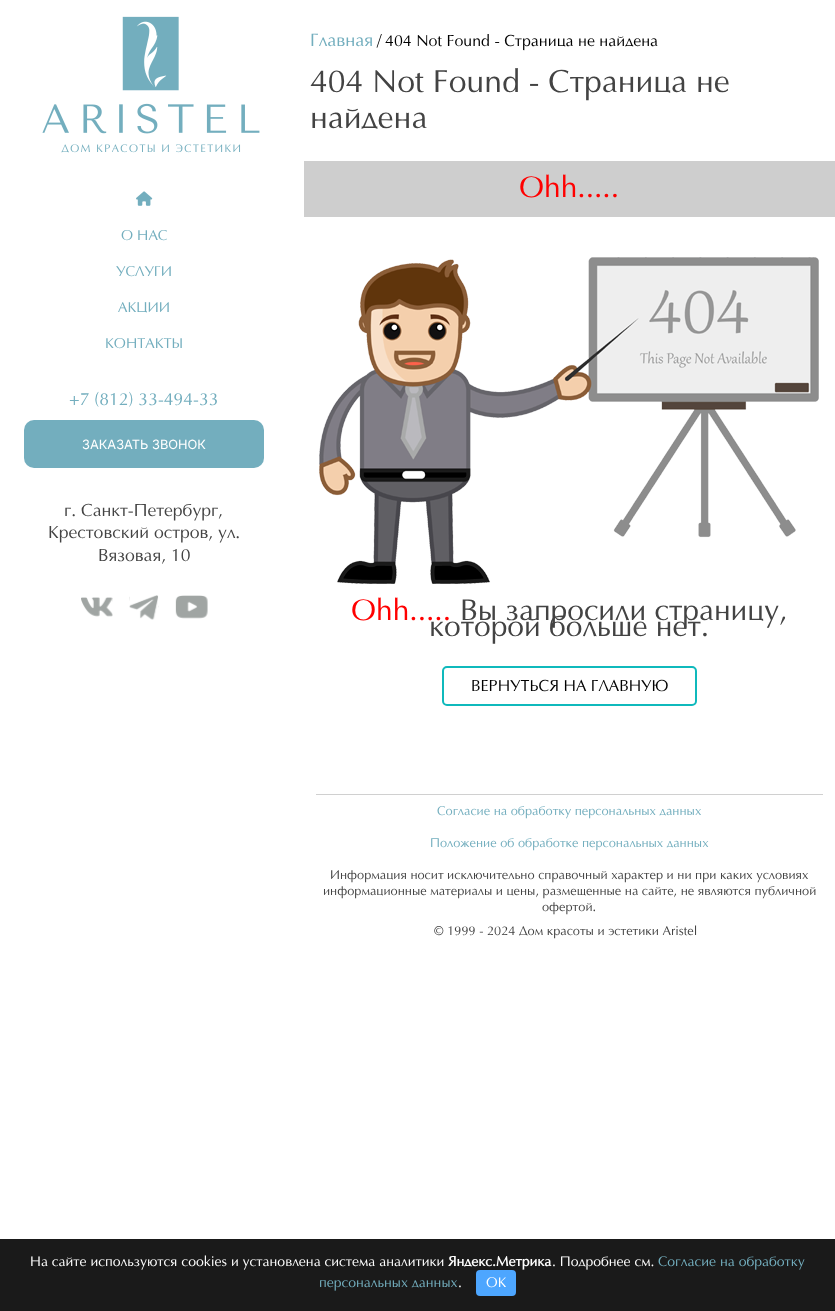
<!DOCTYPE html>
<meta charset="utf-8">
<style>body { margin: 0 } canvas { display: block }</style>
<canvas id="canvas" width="835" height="1311"></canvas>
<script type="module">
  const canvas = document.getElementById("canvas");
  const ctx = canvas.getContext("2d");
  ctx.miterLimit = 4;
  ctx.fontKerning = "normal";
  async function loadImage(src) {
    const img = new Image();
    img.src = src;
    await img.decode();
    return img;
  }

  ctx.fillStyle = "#ffffff";
  ctx.fillRect(0, 0, 835, 1311);
  ctx.font = "18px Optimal";
  ctx.fillStyle = "#73aebe";
  ctx.fillText("Главная", 310, 46);
  ctx.font = "16px Optimal";
  ctx.fillStyle = "#000000";
  ctx.fillText("/", 377, 46);
  ctx.fillText("404 Not Found - Страница не найдена", 385, 46);
  ctx.font = "32px Optimal";
  ctx.fillStyle = "#434343";
  ctx.fillText("404 Not Found - Страница не", 310, 92);
  ctx.fillText("найдена", 310, 128);
  ctx.fillStyle = "#cecece";
  ctx.fillRect(304, 161, 531, 56);
  ctx.font = "30px Optimal";
  ctx.fillStyle = "#ff0000";
  ctx.fillText("Ohh.....", 519, 197);
  ctx.drawImage(await loadImage("img1.png"), 319, 257, 500, 327);
  ctx.fillText("Ohh.....", 351, 620);
  ctx.fillStyle = "#434343";
  ctx.fillText("Вы запросили страницу,", 460, 620);
  ctx.fillText("которой больше нет.", 429, 636);
  ctx.beginPath();
  ctx.roundRect(443, 667, 253, 38, 4);
  ctx.strokeStyle = "#0fb9bc";
  ctx.lineWidth = 2;
  ctx.stroke();
  ctx.font = "16px Optimal";
  ctx.fillStyle = "#000000";
  ctx.fillText("ВЕРНУТЬСЯ НА ГЛАВНУЮ", 471, 691);
  ctx.fillStyle = "#d0d0d0";
  ctx.fillRect(316, 794, 507, 1);
  ctx.font = "12.8px Optimal";
  ctx.fillStyle = "#73aebe";
  ctx.fillText("Согласие на обработку персональных данных", 437, 815);
  ctx.fillText("Положение об обработке персональных данных", 430, 847);
  ctx.fillStyle = "#434343";
  ctx.fillText("Информация носит исключительно справочный характер и ни при каких условиях", 330, 879);
  ctx.fillText("информационные материалы и цены, размещенные на сайте, не являются публичной", 323, 895);
  ctx.fillText("офертой.", 542, 911);
  ctx.fillText("© 1999 - 2024 Дом красоты и эстетики Aristel", 434, 935);
  ctx.fillStyle = "#1a1a1a";
  ctx.fillRect(0, 1239, 835, 72);
  ctx.font = "14px Optimal";
  ctx.fillStyle = "#ffffff";
  ctx.fillText("На сайте используются cookies и установлена система аналитики", 30, 1266);
  ctx.font = "bold 14px Optimal";
  ctx.fillText("Яндекс.Метрика", 448, 1266);
  ctx.font = "14px Optimal";
  ctx.fillText(". Подробнее см.", 552, 1266);
  ctx.fillStyle = "#73aebe";
  ctx.fillText("Согласие на обработку", 658, 1266);
  ctx.fillText("персональных данных", 319, 1287);
  ctx.fillStyle = "#ffffff";
  ctx.fillText(".", 458, 1287);
  ctx.fillStyle = "#4da6ff";
  ctx.beginPath();
  ctx.roundRect(476, 1270, 40, 26, 4);
  ctx.fill();
  ctx.fillStyle = "#ffffff";
  ctx.fillText("ОК", 486, 1287);
  ctx.drawImage(await loadImage("img2.png"), 42, 16, 218, 137);
  ctx.drawImage(await loadImage("img3.png"), 136, 191, 17, 15);
  ctx.font = "14.5px Optimal";
  ctx.fillStyle = "#73aebe";
  ctx.fillText("O НАС", 121, 240);
  ctx.fillText("УСЛУГИ", 116, 276);
  ctx.fillText("АКЦИИ", 118, 312);
  ctx.fillText("КОНТАКТЫ", 105, 348);
  ctx.font = "17.6px Optimal";
  ctx.fillText("+7 (812) 33-494-33", 69, 405);
  ctx.beginPath();
  ctx.roundRect(24, 420, 240, 48, 10);
  ctx.fill();
  ctx.font = "12.8px Inter";
  ctx.fillStyle = "#ffffff";
  ctx.fillText("ЗАКАЗАТЬ ЗВОНОК", 82, 449);
  ctx.font = "17.6px Optimal";
  ctx.fillStyle = "#434343";
  ctx.fillText("г. Санкт-Петербург,", 64, 516);
  ctx.fillText("Крестовский остров, ул.", 48, 538);
  ctx.fillText("Вязовая, 10", 98, 561);
  ctx.drawImage(await loadImage("img4.png"), 81, 597, 32, 20);
  ctx.drawImage(await loadImage("img5.png"), 129, 595, 30, 25);
  ctx.drawImage(await loadImage("img6.png"), 175, 595, 33, 24);
</script>
